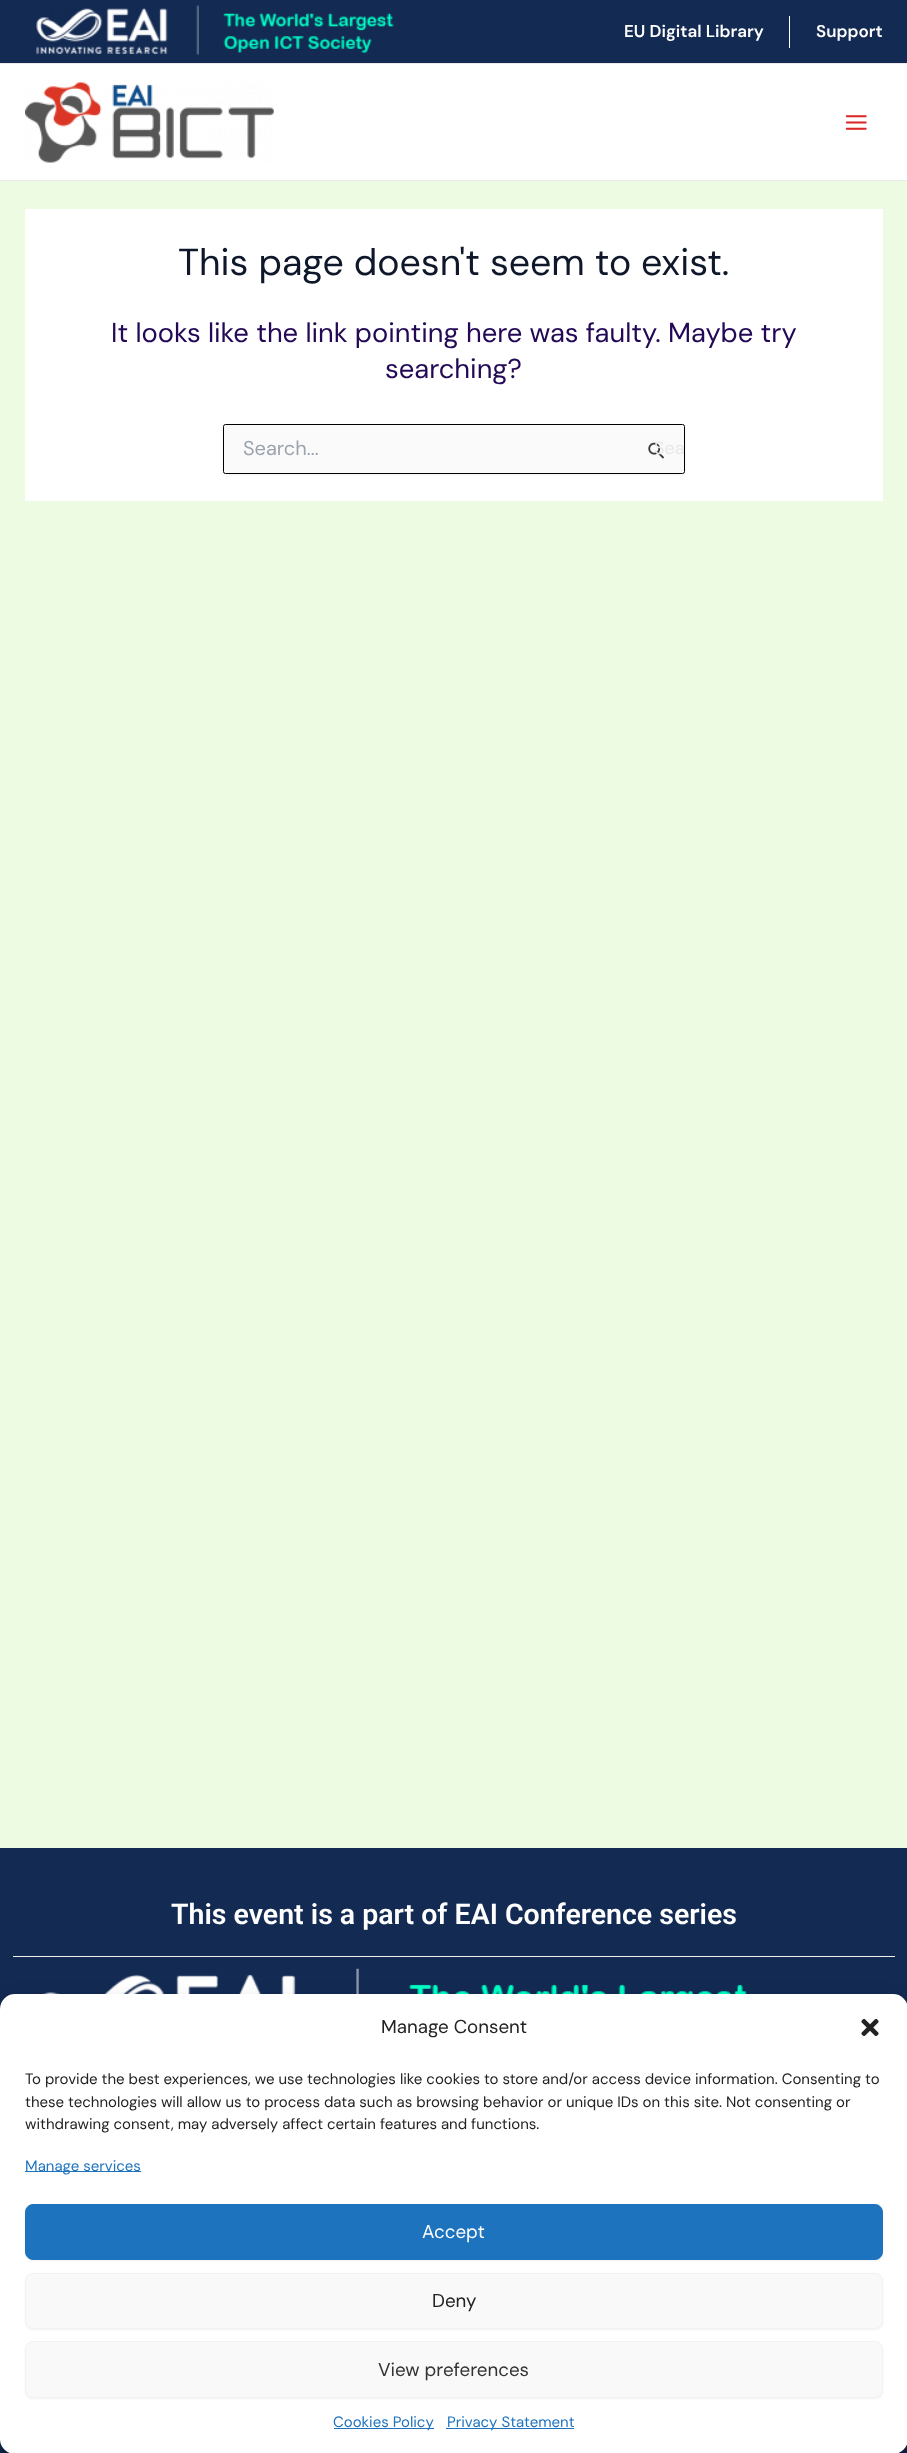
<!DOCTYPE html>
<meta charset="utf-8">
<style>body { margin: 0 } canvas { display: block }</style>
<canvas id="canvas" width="907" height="2453"></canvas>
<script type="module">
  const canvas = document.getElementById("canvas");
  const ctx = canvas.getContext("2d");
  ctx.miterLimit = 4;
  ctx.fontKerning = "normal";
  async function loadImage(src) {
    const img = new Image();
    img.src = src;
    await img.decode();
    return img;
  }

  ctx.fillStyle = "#edfbe2";
  ctx.fillRect(0, 0, 907, 2453);
  ctx.fillStyle = "#132a53";
  ctx.fillRect(0, 0, 907, 63);
  ctx.fillStyle = "#eaeaea";
  ctx.fillRect(0, 63, 907, 1);
  ctx.drawImage(await loadImage("img1.png"), 36, 5, 358, 50);
  ctx.font = "600 17px DM Sans";
  ctx.fillStyle = "#ffffff";
  ctx.fillText("EU Digital Library", 624, 37);
  ctx.fillRect(789, 16, 1, 32);
  ctx.fillText("Support", 816, 37);
  ctx.fillRect(0, 64, 907, 116);
  ctx.fillStyle = "#eaeaea";
  ctx.fillRect(0, 180, 907, 1);
  ctx.drawImage(await loadImage("img2.png"), 25, 82, 249, 81);
  ctx.drawImage(await loadImage("img3.png"), 845, 115, 22, 15);
  ctx.fillStyle = "#ffffff";
  ctx.fillRect(25, 209, 858, 292);
  ctx.font = "37.5px DM Sans";
  ctx.fillStyle = "#0f172a";
  ctx.fillText("This page doesn't seem to exist.", 178, 275);
  ctx.font = "27.35px DM Sans";
  ctx.fillStyle = "#230955";
  ctx.fillText("It looks like the link pointing here was faulty. Maybe try", 111, 342);
  ctx.fillText("searching?", 385, 378);
  ctx.fillStyle = "rgba(0, 0, 0, 0.05)";
  ctx.filter = "blur(1px)";
  ctx.beginPath();
  ctx.roundRect(223, 425, 462, 50, 2.5);
  ctx.fill();
  ctx.filter = "none";
  ctx.fillStyle = "#fafafa";
  ctx.beginPath();
  ctx.roundRect(223.5, 424.5, 461, 49, 2);
  ctx.fill();
  ctx.strokeStyle = "#000000";
  ctx.stroke();
  ctx.font = "20px DM Sans";
  ctx.fillStyle = "#9ca3af";
  ctx.fillText("Search...", 243, 455);
  ctx.drawImage(await loadImage("img4.png"), 648, 442, 16, 17);
  ctx.font = "18px DM Sans";
  ctx.fillStyle = "#e8e8e8";
  ctx.fillText("Sea", 654, 454);
  ctx.fillStyle = "#132a53";
  ctx.fillRect(0, 1848, 907, 605);
  ctx.fillStyle = "#f0f0f0";
  ctx.fillRect(13, 1956, 882, 1);
  ctx.font = "600 28.5px Roboto";
  ctx.fillStyle = "#ffffff";
  ctx.fillText("This event is a part of EAI Conference series", 171, 1924);
  ctx.drawImage(await loadImage("img5.png"), 42, 1968, 705, 26);
  ctx.fillStyle = "rgba(0, 0, 0, 0.23)";
  ctx.filter = "blur(4px)";
  ctx.beginPath();
  ctx.roundRect(0, 2001, 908, 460, 15);
  ctx.fill();
  ctx.filter = "none";
  ctx.fillStyle = "rgba(0, 0, 0, 0.19)";
  ctx.filter = "blur(12.5px)";
  ctx.beginPath();
  ctx.roundRect(0, 2006, 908, 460, 15);
  ctx.fill();
  ctx.filter = "none";
  ctx.fillStyle = "#ffffff";
  ctx.beginPath();
  ctx.roundRect(0, 1994, 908, 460, 15);
  ctx.fill();
  ctx.font = "18.75px DM Sans";
  ctx.fillStyle = "#222222";
  ctx.fillText("Manage Consent", 381, 2033);
  ctx.drawImage(await loadImage("img6.png"), 861, 2018, 18, 18);
  ctx.font = "15px DM Sans";
  ctx.fillText("To provide the best experiences, we use technologies like cookies to store and/or access device information. Consenting to", 25, 2084);
  ctx.fillText("these technologies will allow us to process data such as browsing behavior or unique IDs on this site. Not consenting or", 25, 2107);
  ctx.fillText("withdrawing consent, may adversely affect certain features and functions.", 25, 2129);
  ctx.fillStyle = "#1e73be";
  ctx.fillRect(25, 2171, 116, 1);
  ctx.fillText("Manage services", 25, 2171);
  ctx.fillStyle = "rgba(0, 0, 0, 0.05)";
  ctx.filter = "blur(1px)";
  ctx.beginPath();
  ctx.roundRect(25, 2205, 858, 56, 8);
  ctx.fill();
  ctx.filter = "none";
  ctx.fillStyle = "#1e73be";
  ctx.beginPath();
  ctx.roundRect(25.5, 2204.5, 857, 55, 7.5);
  ctx.fill();
  ctx.strokeStyle = "#1e73be";
  ctx.stroke();
  ctx.font = "18.75px DM Sans";
  ctx.fillStyle = "#ffffff";
  ctx.fillText("Accept", 422, 2238);
  ctx.fillStyle = "rgba(0, 0, 0, 0.05)";
  ctx.filter = "blur(1px)";
  ctx.beginPath();
  ctx.roundRect(25, 2274, 858, 56, 8);
  ctx.fill();
  ctx.filter = "none";
  ctx.fillStyle = "#f9f9f9";
  ctx.beginPath();
  ctx.roundRect(25.5, 2273.5, 857, 55, 7.5);
  ctx.fill();
  ctx.strokeStyle = "#f2f2f2";
  ctx.stroke();
  ctx.fillStyle = "#222222";
  ctx.fillText("Deny", 432, 2307);
  ctx.fillStyle = "rgba(0, 0, 0, 0.05)";
  ctx.filter = "blur(1px)";
  ctx.beginPath();
  ctx.roundRect(25, 2343, 858, 56, 8);
  ctx.fill();
  ctx.filter = "none";
  ctx.fillStyle = "#f9f9f9";
  ctx.beginPath();
  ctx.roundRect(25.5, 2341.5, 857, 56, 7.5);
  ctx.fill();
  ctx.stroke();
  ctx.fillStyle = "#333333";
  ctx.fillText("View preferences", 378, 2376);
  ctx.fillStyle = "#1e73be";
  ctx.fillRect(334, 2428, 100, 1);
  ctx.font = "15px DM Sans";
  ctx.fillText("Cookies Policy", 333, 2427);
  ctx.fillRect(446, 2428, 128, 1);
  ctx.fillText("Privacy Statement", 447, 2427);
</script>
